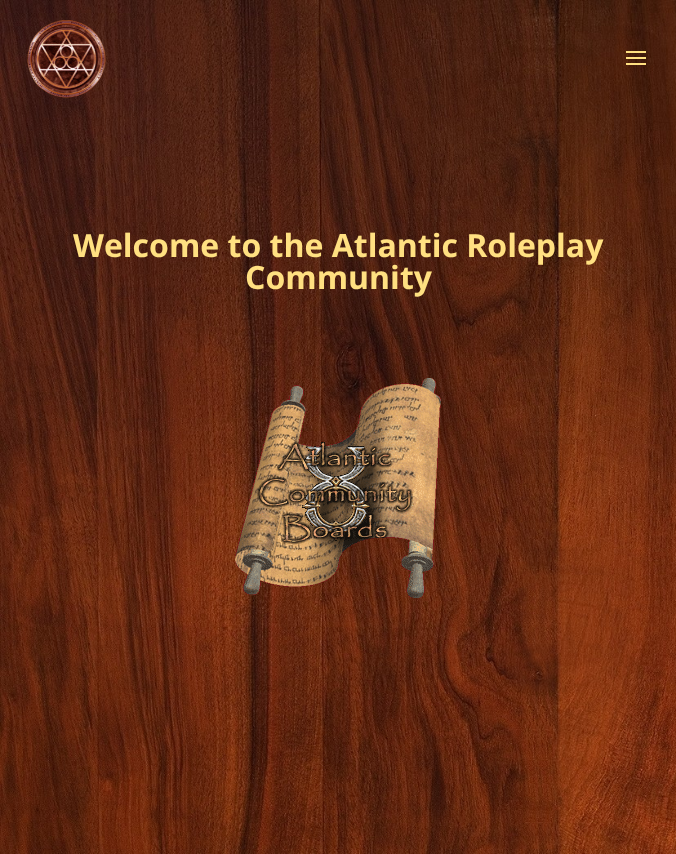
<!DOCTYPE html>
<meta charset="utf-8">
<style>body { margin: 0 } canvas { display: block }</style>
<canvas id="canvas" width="676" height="854"></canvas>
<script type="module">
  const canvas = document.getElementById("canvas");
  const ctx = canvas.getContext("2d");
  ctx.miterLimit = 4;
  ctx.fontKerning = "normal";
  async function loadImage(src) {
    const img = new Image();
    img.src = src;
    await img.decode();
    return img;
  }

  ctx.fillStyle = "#ffffff";
  ctx.fillRect(0, 0, 676, 854);
  ctx.drawImage(await loadImage("img1.png"), 0, 0, 676, 854);
  ctx.drawImage(await loadImage("img2.png"), 27, 20, 79, 78);
  ctx.fillStyle = "#ffe081";
  ctx.fillRect(626, 51, 20, 2);
  ctx.fillRect(626, 57, 20, 2);
  ctx.fillRect(626, 63, 20, 2);
  ctx.font = "bold 32px Open Sans";
  ctx.fillText("Welcome to the Atlantic Roleplay", 73, 257);
  ctx.fillText("Community", 245, 289);
  ctx.drawImage(await loadImage("img3.png"), 235, 378, 206, 220);
</script>
